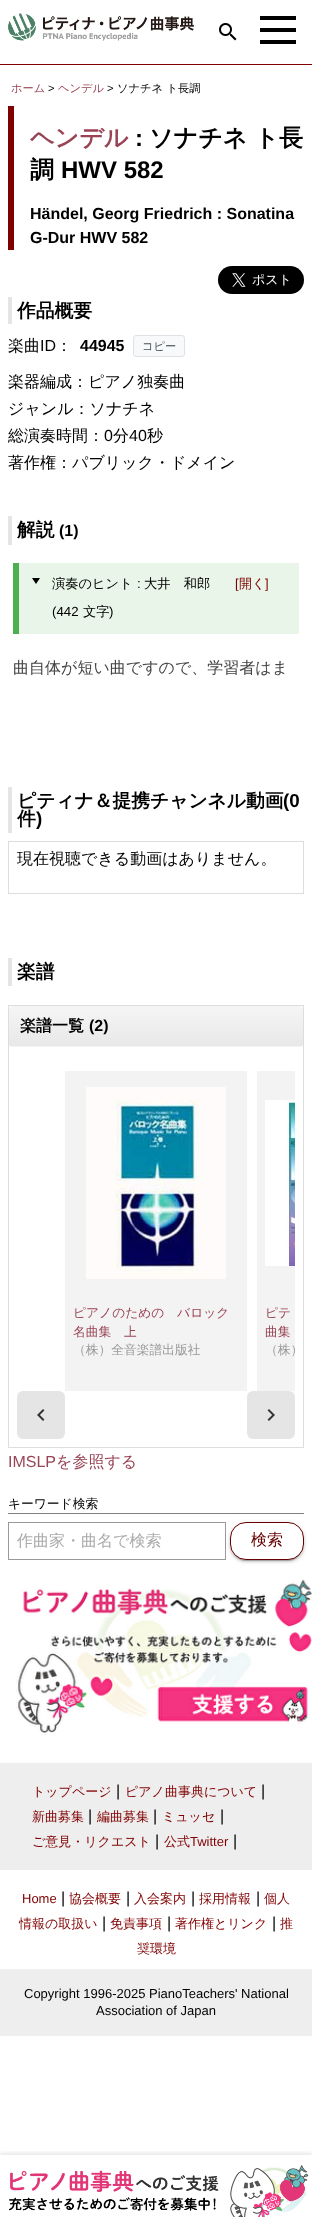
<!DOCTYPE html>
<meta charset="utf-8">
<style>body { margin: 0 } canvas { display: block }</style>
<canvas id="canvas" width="312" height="2231"></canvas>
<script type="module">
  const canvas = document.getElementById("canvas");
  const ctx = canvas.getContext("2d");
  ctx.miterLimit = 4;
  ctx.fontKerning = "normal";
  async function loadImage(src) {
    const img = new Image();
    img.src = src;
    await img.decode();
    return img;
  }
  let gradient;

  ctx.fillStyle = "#ffffff";
  ctx.fillRect(0, 0, 312, 2231);
  ctx.drawImage(await loadImage("img1.png"), 8, 13, 186, 28);
  ctx.drawImage(await loadImage("img2.png"), 219, 23, 18, 18);
  ctx.fillStyle = "#800000";
  ctx.fillRect(0, 64, 312, 1);
  ctx.fillStyle = "#000000";
  ctx.fillRect(260, 16, 36, 4);
  ctx.fillRect(260, 28, 36, 4);
  ctx.fillRect(260, 40, 36, 4);
  ctx.font = "500 11.25px WenQuanYi Zen Hei";
  ctx.fillStyle = "#994455";
  ctx.fillText("ホーム", 11, 92);
  ctx.font = "11.25px Liberation Sans";
  ctx.fillStyle = "#000000";
  ctx.fillText(">", 48, 92);
  ctx.font = "500 11.25px WenQuanYi Zen Hei";
  ctx.fillStyle = "#994455";
  ctx.fillText("ヘンデル", 58, 92);
  ctx.font = "11.25px Liberation Sans";
  ctx.fillStyle = "#000000";
  ctx.fillText(">", 107, 92);
  ctx.font = "500 11.25px WenQuanYi Zen Hei";
  ctx.fillText("ソナチネ ト長調", 117, 92);
  ctx.fillStyle = "#800000";
  ctx.fillRect(8, 106, 6, 144);
  ctx.font = "bold 24px WenQuanYi Zen Hei";
  ctx.fillStyle = "#994455";
  ctx.fillText("ヘンデル", 30, 146);
  ctx.font = "bold 24px Liberation Sans";
  ctx.fillStyle = "#000000";
  ctx.fillText(":", 135, 146);
  ctx.font = "bold 24px WenQuanYi Zen Hei";
  ctx.fillText("ソナチネ ト長", 149, 146);
  ctx.fillText("調", 30, 178);
  ctx.font = "bold 24px Liberation Sans";
  ctx.fillText("HWV 582", 61, 178);
  ctx.font = "bold 16px Liberation Sans";
  ctx.fillText("Händel, Georg Friedrich : Sonatina", 30, 219);
  ctx.fillText("G-Dur HWV 582", 30, 243);
  ctx.drawImage(await loadImage("img3.png"), 218, 266, 86, 28);
  ctx.fillStyle = "#e5e5e5";
  ctx.fillRect(8, 297, 4, 27);
  ctx.font = "bold 18.75px WenQuanYi Zen Hei";
  ctx.fillStyle = "#000000";
  ctx.fillText("作品概要", 17, 317);
  ctx.font = "500 16px WenQuanYi Zen Hei";
  ctx.fillText("楽曲", 8, 351);
  ctx.font = "16px Liberation Sans";
  ctx.fillText("ID", 40, 351);
  ctx.font = "500 16px WenQuanYi Zen Hei";
  ctx.fillText("：", 56, 351);
  ctx.font = "bold 16px Liberation Sans";
  ctx.fillText("44945", 80, 351);
  ctx.fillStyle = "#f8f9fa";
  ctx.beginPath();
  ctx.roundRect(133.5, 335.5, 51, 21, 2.5);
  ctx.fill();
  ctx.strokeStyle = "#dee2e6";
  ctx.stroke();
  ctx.font = "500 11.25px WenQuanYi Zen Hei";
  ctx.fillStyle = "#495057";
  ctx.fillText("コピー", 142, 350);
  ctx.font = "500 16px WenQuanYi Zen Hei";
  ctx.fillStyle = "#000000";
  ctx.fillText("楽器編成：ピアノ独奏曲", 8, 387);
  ctx.fillText("ジャンル：ソナチネ", 8, 414);
  ctx.fillText("総演奏時間：", 8, 441);
  ctx.font = "16px Liberation Sans";
  ctx.fillText("0", 104, 441);
  ctx.font = "500 16px WenQuanYi Zen Hei";
  ctx.fillText("分", 113, 441);
  ctx.font = "16px Liberation Sans";
  ctx.fillText("40", 129, 441);
  ctx.font = "500 16px WenQuanYi Zen Hei";
  ctx.fillText("秒", 147, 441);
  ctx.fillText("著作権：パブリック・ドメイン", 8, 468);
  ctx.fillStyle = "#e5e5e5";
  ctx.fillRect(8, 516, 4, 29);
  ctx.font = "bold 18.75px WenQuanYi Zen Hei";
  ctx.fillStyle = "#000000";
  ctx.fillText("解説", 17, 536);
  ctx.font = "bold 16px Liberation Sans";
  ctx.fillText("(1)", 59, 536);
  ctx.fillStyle = "#e8f5e8";
  ctx.fillRect(19, 563, 280, 71);
  ctx.fillStyle = "#4caf50";
  ctx.fillRect(13, 563, 6, 71);
  ctx.fillStyle = "#000000";
  ctx.beginPath();
  ctx.moveTo(32, 578);
  ctx.lineTo(40, 578);
  ctx.lineTo(36, 584);
  ctx.closePath();
  ctx.fill();
  ctx.font = "500 13.25px WenQuanYi Zen Hei";
  ctx.fillText("演奏のヒント", 52, 588);
  ctx.font = "13.25px Liberation Sans";
  ctx.fillText(":", 137, 588);
  ctx.font = "500 13.25px WenQuanYi Zen Hei";
  ctx.fillText("大井　和郎", 144, 588);
  ctx.font = "13.25px Liberation Sans";
  ctx.fillText("(442", 52, 616);
  ctx.font = "500 13.25px WenQuanYi Zen Hei";
  ctx.fillText("文字", 83, 616);
  ctx.font = "13.25px Liberation Sans";
  ctx.fillText(")", 109, 616);
  ctx.font = "13px Liberation Sans";
  ctx.fillStyle = "#800000";
  ctx.fillText("[", 235, 588);
  ctx.font = "500 13px WenQuanYi Zen Hei";
  ctx.fillText("開く", 239, 588);
  ctx.font = "13px Liberation Sans";
  ctx.fillText("]", 265, 588);
  ctx.font = "500 16px WenQuanYi Zen Hei";
  ctx.fillStyle = "#444444";
  ctx.fillText("曲自体が短い曲ですので、学習者はま", 13, 673);
  gradient = ctx.createLinearGradient(156, 675, 156, 723);
  gradient.addColorStop(0, "rgba(255, 255, 255, 0)");
  gradient.addColorStop(0.1, "rgba(255, 255, 255, 0.7)");
  gradient.addColorStop(0.7, "#ffffff");
  ctx.fillStyle = gradient;
  ctx.fillRect(67, 675, 211, 1);
  ctx.fillStyle = "#e5e5e5";
  ctx.fillRect(8, 787, 4, 46);
  ctx.font = "bold 18.75px WenQuanYi Zen Hei";
  ctx.fillStyle = "#000000";
  ctx.fillText("ピティナ＆提携チャンネル動画", 17, 807);
  ctx.font = "bold 18.75px Liberation Sans";
  ctx.fillText("(0", 283, 807);
  ctx.font = "bold 18.75px WenQuanYi Zen Hei";
  ctx.fillText("件", 17, 825);
  ctx.font = "bold 18.75px Liberation Sans";
  ctx.fillText(")", 36, 825);
  ctx.strokeStyle = "#dddddd";
  ctx.strokeRect(8.5, 841.5, 295, 52);
  ctx.font = "500 16px WenQuanYi Zen Hei";
  ctx.fillText("現在視聴できる動画はありません。", 17, 864);
  ctx.fillStyle = "#e5e5e5";
  ctx.fillRect(8, 958, 4, 28);
  ctx.font = "bold 18.75px WenQuanYi Zen Hei";
  ctx.fillStyle = "#000000";
  ctx.fillText("楽譜", 17, 978);
  ctx.strokeRect(8.5, 1005.5, 295, 442);
  ctx.save();
  ctx.beginPath();
  ctx.roundRect(9, 1006, 294, 41, 3);
  ctx.clip();
  gradient = ctx.createLinearGradient(156, 1006, 156, 1046);
  gradient.addColorStop(0, "#f5f5f5");
  gradient.addColorStop(1, "#e8e8e8");
  ctx.fillStyle = gradient;
  ctx.beginPath();
  ctx.roundRect(9, 1006, 294, 40, [3, 3, 0, 0]);
  ctx.fill();
  gradient = ctx.createLinearGradient(156, 1046, 156, 1086);
  gradient.addColorStop(0, "#f5f5f5");
  gradient.addColorStop(1, "#e8e8e8");
  ctx.fillStyle = gradient;
  ctx.fillRect(9, 1046, 294, 1);
  ctx.restore();
  ctx.font = "bold 16px WenQuanYi Zen Hei";
  ctx.fillText("楽譜一覧", 20, 1031);
  ctx.font = "bold 16px Liberation Sans";
  ctx.fillText("(2)", 89, 1031);
  ctx.fillStyle = "#f3f3f3";
  ctx.fillRect(65, 1071, 182, 320);
  ctx.drawImage(await loadImage("img4.png"), 86, 1087, 140, 192);
  ctx.font = "500 12.75px WenQuanYi Zen Hei";
  ctx.fillStyle = "#994455";
  ctx.fillText("ピアノのための　バロック", 73, 1317);
  ctx.fillText("名曲集　上", 73, 1336);
  ctx.fillStyle = "#999999";
  ctx.fillText("（株）全音楽譜出版社", 73, 1354);
  ctx.fillStyle = "#f3f3f3";
  ctx.fillRect(257, 1071, 38, 320);
  ctx.drawImage(await loadImage("img5.png"), 265, 1100, 30, 166);
  ctx.fillStyle = "#994455";
  ctx.fillText("ピテ", 265, 1317);
  ctx.fillText("曲集", 265, 1336);
  ctx.fillStyle = "#999999";
  ctx.fillText("（株）", 265, 1354);
  ctx.fillStyle = "#e5e5e5";
  ctx.beginPath();
  ctx.roundRect(17, 1391, 48, 48, 6);
  ctx.fill();
  ctx.drawImage(await loadImage("img6.png"), 37, 1409, 8, 12);
  ctx.beginPath();
  ctx.roundRect(247, 1391, 48, 48, 6);
  ctx.fill();
  ctx.drawImage(await loadImage("img7.png"), 267, 1409, 8, 12);
  ctx.font = "16px Liberation Sans";
  ctx.fillStyle = "#994455";
  ctx.fillText("IMSLP", 8, 1467);
  ctx.font = "500 16px WenQuanYi Zen Hei";
  ctx.fillText("を参照する", 56, 1467);
  ctx.fillStyle = "#808080";
  ctx.fillRect(8, 1513, 296, 1);
  ctx.font = "500 12.75px WenQuanYi Zen Hei";
  ctx.fillStyle = "#000000";
  ctx.fillText("キーワード検索", 8, 1508);
  ctx.strokeStyle = "#999999";
  ctx.strokeRect(8.5, 1522.5, 217, 37);
  ctx.font = "500 16px WenQuanYi Zen Hei";
  ctx.fillStyle = "#aaaaaa";
  ctx.fillText("作曲家・曲名で検索", 17, 1546);
  ctx.fillStyle = "rgba(0, 0, 0, 0.2)";
  ctx.filter = "blur(0.5px)";
  ctx.beginPath();
  ctx.roundRect(232, 1527, 70, 34, 14);
  ctx.fill();
  ctx.filter = "none";
  ctx.fillStyle = "rgba(0, 0, 0, 0.12)";
  ctx.filter = "blur(2.5px)";
  ctx.beginPath();
  ctx.roundRect(230, 1523, 74, 38, 16);
  ctx.fill();
  ctx.filter = "none";
  ctx.fillStyle = "rgba(0, 0, 0, 0.14)";
  ctx.filter = "blur(1px)";
  ctx.beginPath();
  ctx.roundRect(230, 1524, 74, 38, 16);
  ctx.fill();
  ctx.filter = "none";
  ctx.fillStyle = "#ffffff";
  ctx.beginPath();
  ctx.roundRect(230.5, 1522.5, 73, 37, 15.5);
  ctx.fill();
  ctx.strokeStyle = "#660000";
  ctx.stroke();
  ctx.fillStyle = "#660000";
  ctx.fillText("検索", 251, 1545);
  ctx.drawImage(await loadImage("img8.png"), 16, 1579, 296, 156);
  ctx.fillStyle = "#eeeeee";
  ctx.fillRect(0, 1763, 312, 107);
  ctx.font = "500 13px WenQuanYi Zen Hei";
  ctx.fillStyle = "#800000";
  ctx.fillText("トップページ", 32, 1796);
  ctx.font = "16px Liberation Sans";
  ctx.fillStyle = "#000000";
  ctx.fillText("|", 116, 1796);
  ctx.font = "500 13px WenQuanYi Zen Hei";
  ctx.fillStyle = "#800000";
  ctx.fillText("ピアノ曲事典について", 125, 1796);
  ctx.font = "16px Liberation Sans";
  ctx.fillStyle = "#000000";
  ctx.fillText("|", 261, 1796);
  ctx.font = "500 13px WenQuanYi Zen Hei";
  ctx.fillStyle = "#800000";
  ctx.fillText("新曲募集", 32, 1821);
  ctx.font = "16px Liberation Sans";
  ctx.fillStyle = "#000000";
  ctx.fillText("|", 88, 1821);
  ctx.font = "500 13px WenQuanYi Zen Hei";
  ctx.fillStyle = "#800000";
  ctx.fillText("編曲募集", 97, 1821);
  ctx.font = "16px Liberation Sans";
  ctx.fillStyle = "#000000";
  ctx.fillText("|", 153, 1821);
  ctx.font = "500 13px WenQuanYi Zen Hei";
  ctx.fillStyle = "#800000";
  ctx.fillText("ミュッセ", 162, 1821);
  ctx.font = "16px Liberation Sans";
  ctx.fillStyle = "#000000";
  ctx.fillText("|", 220, 1821);
  ctx.font = "500 13px WenQuanYi Zen Hei";
  ctx.fillStyle = "#800000";
  ctx.fillText("ご意見・リクエスト", 32, 1846);
  ctx.font = "16px Liberation Sans";
  ctx.fillStyle = "#000000";
  ctx.fillText("|", 155, 1846);
  ctx.font = "500 13px WenQuanYi Zen Hei";
  ctx.fillStyle = "#800000";
  ctx.fillText("公式", 164, 1846);
  ctx.font = "13px Liberation Sans";
  ctx.fillText("Twitter", 190, 1846);
  ctx.font = "16px Liberation Sans";
  ctx.fillStyle = "#000000";
  ctx.fillText("|", 233, 1846);
  ctx.font = "13px Liberation Sans";
  ctx.fillStyle = "#800000";
  ctx.fillText("Home", 22, 1903);
  ctx.font = "16px Liberation Sans";
  ctx.fillStyle = "#000000";
  ctx.fillText("|", 61, 1903);
  ctx.font = "500 13px WenQuanYi Zen Hei";
  ctx.fillStyle = "#800000";
  ctx.fillText("協会概要", 69, 1903);
  ctx.font = "16px Liberation Sans";
  ctx.fillStyle = "#000000";
  ctx.fillText("|", 126, 1903);
  ctx.font = "500 13px WenQuanYi Zen Hei";
  ctx.fillStyle = "#800000";
  ctx.fillText("入会案内", 134, 1903);
  ctx.font = "16px Liberation Sans";
  ctx.fillStyle = "#000000";
  ctx.fillText("|", 191, 1903);
  ctx.font = "500 13px WenQuanYi Zen Hei";
  ctx.fillStyle = "#800000";
  ctx.fillText("採用情報", 199, 1903);
  ctx.font = "16px Liberation Sans";
  ctx.fillStyle = "#000000";
  ctx.fillText("|", 256, 1903);
  ctx.font = "500 13px WenQuanYi Zen Hei";
  ctx.fillStyle = "#800000";
  ctx.fillText("個人", 264, 1903);
  ctx.fillText("情報の取扱い", 19, 1928);
  ctx.font = "16px Liberation Sans";
  ctx.fillStyle = "#000000";
  ctx.fillText("|", 102, 1928);
  ctx.font = "500 13px WenQuanYi Zen Hei";
  ctx.fillStyle = "#800000";
  ctx.fillText("免責事項", 110, 1928);
  ctx.font = "16px Liberation Sans";
  ctx.fillStyle = "#000000";
  ctx.fillText("|", 167, 1928);
  ctx.font = "500 13px WenQuanYi Zen Hei";
  ctx.fillStyle = "#800000";
  ctx.fillText("著作権とリンク", 175, 1928);
  ctx.font = "16px Liberation Sans";
  ctx.fillStyle = "#000000";
  ctx.fillText("|", 272, 1928);
  ctx.font = "500 13px WenQuanYi Zen Hei";
  ctx.fillStyle = "#800000";
  ctx.fillText("推", 280, 1928);
  ctx.fillText("奨環境", 137, 1953);
  ctx.fillStyle = "#eeeeee";
  ctx.fillRect(0, 1969, 312, 67);
  ctx.font = "13px Liberation Sans";
  ctx.fillStyle = "#000000";
  ctx.fillText("Copyright 1996-2025 PianoTeachers' National", 24, 1998);
  ctx.fillText("Association of Japan", 96, 2015);
  ctx.save();
  ctx.beginPath();
  ctx.rect(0, 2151, 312, 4);
  ctx.clip();
  ctx.fillStyle = "rgba(0, 0, 0, 0.1)";
  ctx.filter = "blur(2.5px)";
  ctx.beginPath();
  ctx.rect(0, 2153, 312, 76);
  ctx.fill();
  ctx.filter = "none";
  ctx.restore();
  ctx.drawImage(await loadImage("img9.png"), 9, 2165, 300, 52);
</script>
